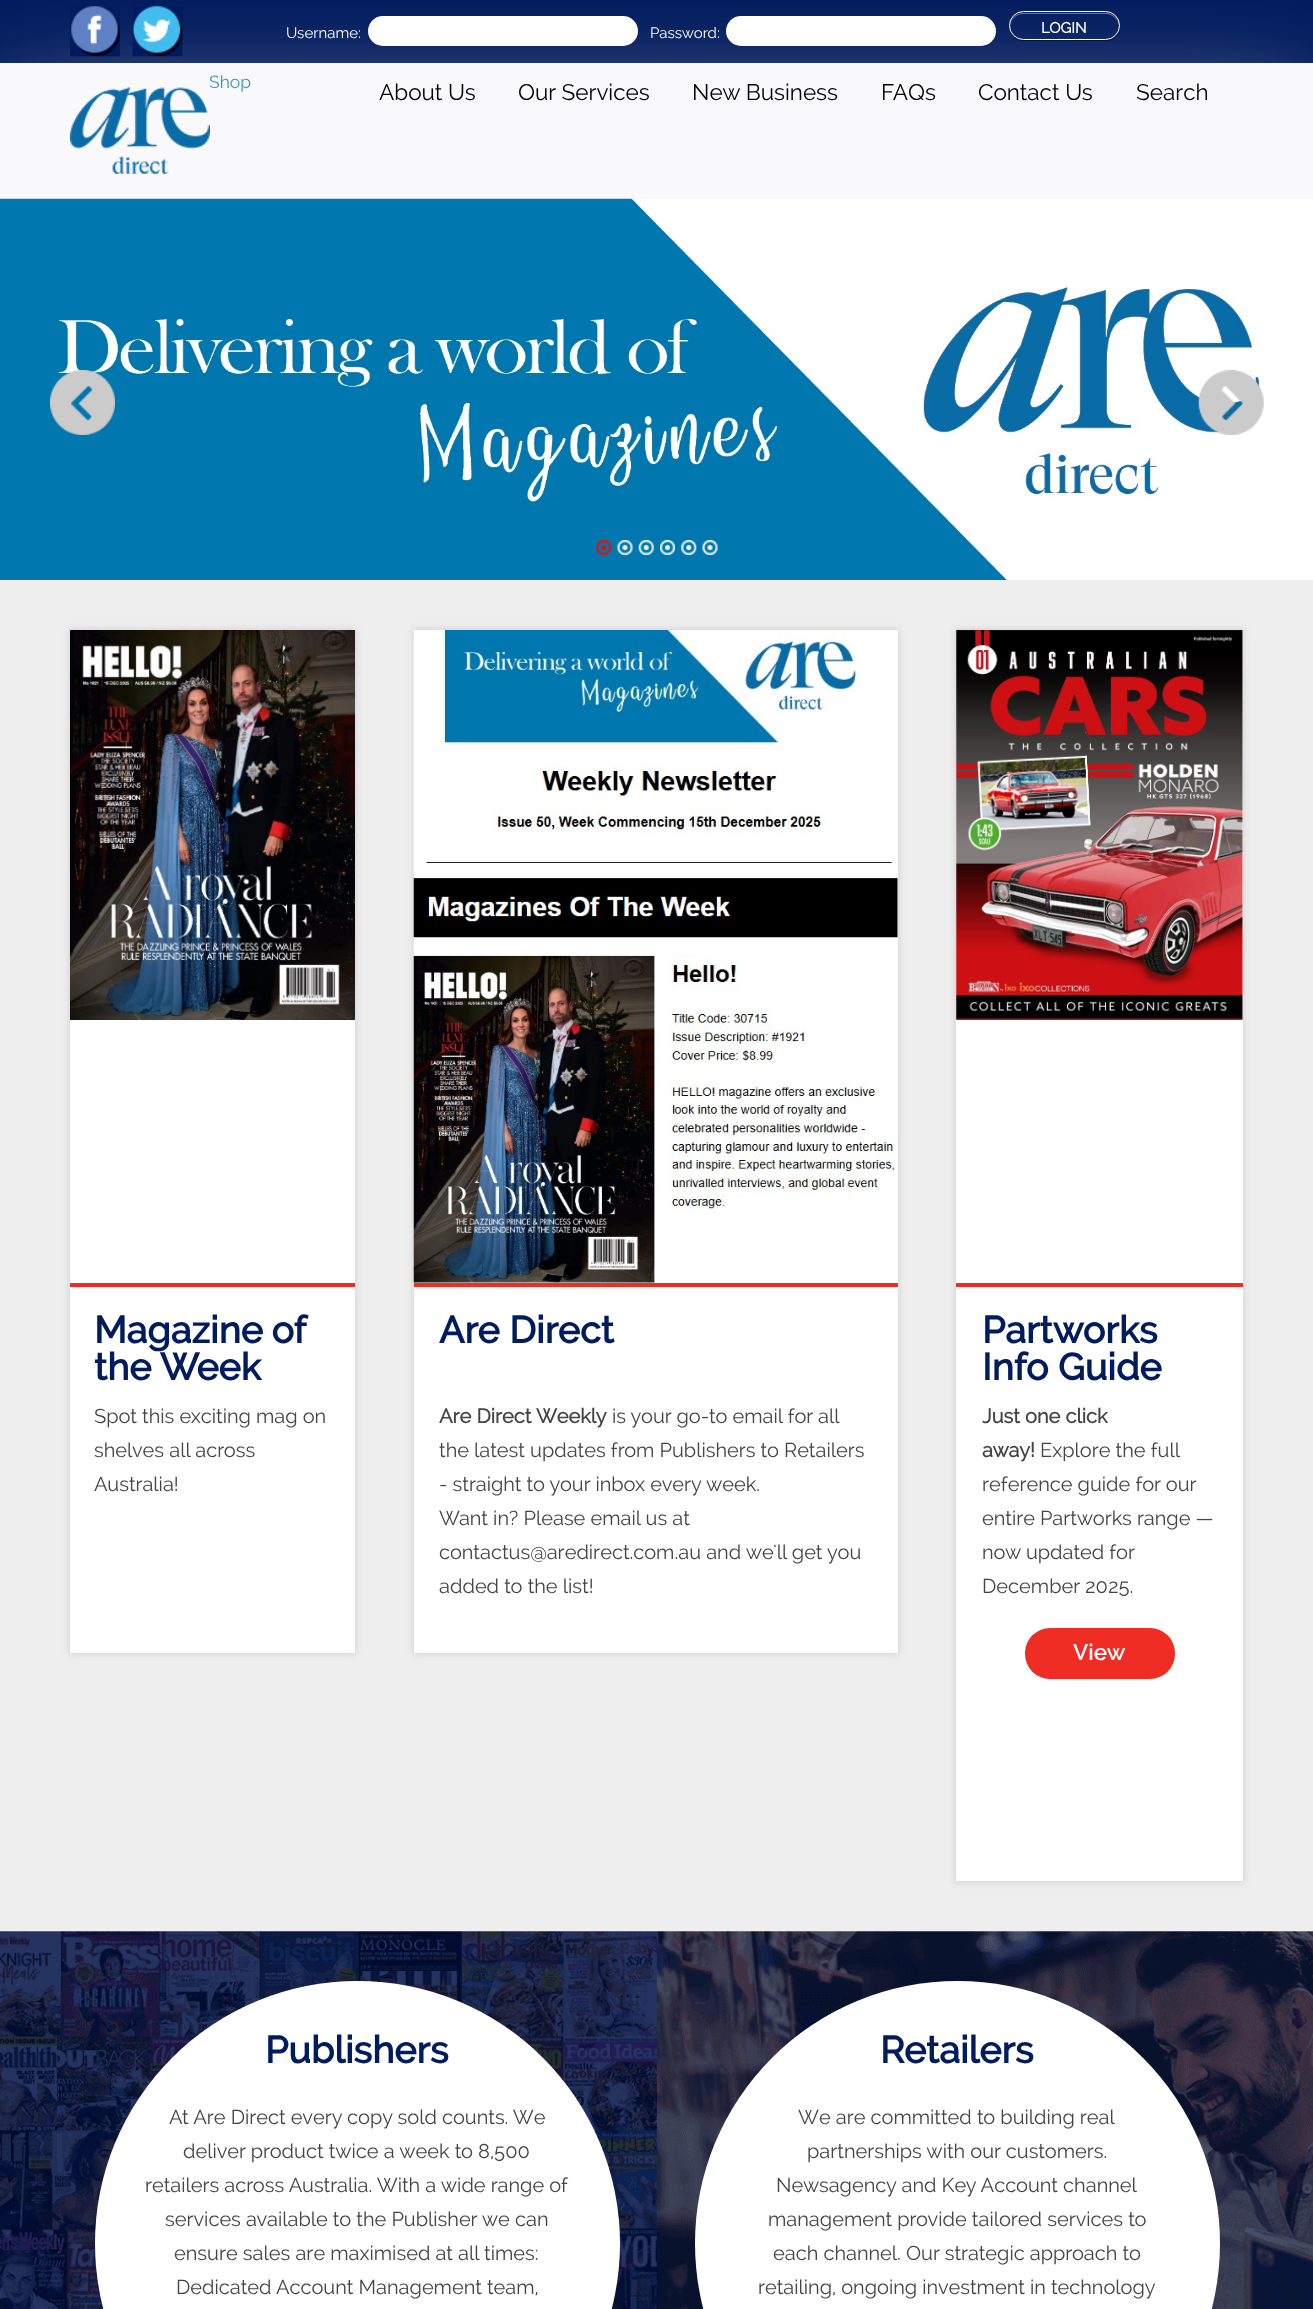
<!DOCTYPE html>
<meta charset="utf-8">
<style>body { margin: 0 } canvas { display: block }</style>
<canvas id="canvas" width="1313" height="2309"></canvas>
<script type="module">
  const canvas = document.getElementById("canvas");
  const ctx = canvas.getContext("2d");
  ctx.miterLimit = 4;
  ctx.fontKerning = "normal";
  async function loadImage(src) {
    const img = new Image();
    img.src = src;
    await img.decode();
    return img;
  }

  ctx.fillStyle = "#ffffff";
  ctx.fillRect(0, 0, 1313, 2309);
  ctx.fillStyle = "#001b5e";
  ctx.fillRect(0, 0, 1313, 63);
  ctx.fillStyle = "#cacaca";
  ctx.filter = "blur(62.5px)";
  ctx.beginPath();
  ctx.rect(1, 125, 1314, 136);
  ctx.fill();
  ctx.filter = "none";
  ctx.drawImage(await loadImage("img1.png"), 70, 6, 50, 51);
  ctx.drawImage(await loadImage("img2.png"), 132, 6, 51, 51);
  ctx.font = "15px Raleway";
  ctx.fillStyle = "#ffffff";
  ctx.fillText("Username:", 286, 38);
  ctx.beginPath();
  ctx.roundRect(368, 16, 270, 30, 15);
  ctx.fill();
  ctx.fillText("Password:", 650, 38);
  ctx.beginPath();
  ctx.roundRect(726, 16, 270, 30, 15);
  ctx.fill();
  ctx.fillStyle = "rgba(0, 0, 0, 0.6)";
  ctx.beginPath();
  ctx.moveTo(1009, 29);
  ctx.bezierCurveTo(1010, 36, 1016, 41, 1023, 41);
  ctx.lineTo(1106, 41);
  ctx.bezierCurveTo(1114, 41, 1120, 35, 1120, 27);
  ctx.lineTo(1120, 26);
  ctx.bezierCurveTo(1120, 34, 1113, 40, 1106, 40);
  ctx.lineTo(1023, 40);
  ctx.bezierCurveTo(1016, 40, 1011, 35, 1009, 29);
  ctx.closePath();
  ctx.fill();
  ctx.fillStyle = "#6b7aa1";
  ctx.beginPath();
  ctx.moveTo(1023, 14);
  ctx.lineTo(1106, 14);
  ctx.bezierCurveTo(1113, 14, 1119, 20, 1119, 27);
  ctx.lineTo(1119, 26);
  ctx.bezierCurveTo(1119, 19, 1113, 13, 1106, 13);
  ctx.lineTo(1023, 13);
  ctx.bezierCurveTo(1016, 13, 1010, 19, 1010, 26);
  ctx.lineTo(1010, 27);
  ctx.bezierCurveTo(1010, 20, 1016, 14, 1023, 14);
  ctx.closePath();
  ctx.fill();
  ctx.beginPath();
  ctx.roundRect(1009.5, 11.5, 110, 28, 14);
  ctx.strokeStyle = "#ffffff";
  ctx.stroke();
  ctx.font = "bold 15px 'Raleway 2'";
  ctx.fillStyle = "#ffffff";
  ctx.fillText("LOGIN", 1041, 33);
  ctx.fillStyle = "#f9f9fb";
  ctx.fillRect(0, 63, 1313, 136);
  ctx.drawImage(await loadImage("img3.png"), 70, 87, 140, 87);
  ctx.font = "17.5px Raleway";
  ctx.fillStyle = "#3b96b6";
  ctx.fillText("Shop", 209, 88);
  ctx.font = "22.5px Raleway";
  ctx.fillStyle = "#000000";
  ctx.fillText("About Us", 379, 100);
  ctx.fillText("Our Services", 518, 100);
  ctx.fillText("New Business", 692, 100);
  ctx.fillText("FAQs", 881, 100);
  ctx.fillText("Contact Us", 978, 100);
  ctx.fillText("Search", 1136, 100);
  ctx.drawImage(await loadImage("img4.png"), 0, 198, 1313, 382);
  ctx.drawImage(await loadImage("img5.png"), 50, 370, 65, 65);
  ctx.drawImage(await loadImage("img6.png"), 1198, 370, 66, 65);
  ctx.drawImage(await loadImage("img7.png"), 596, 540, 16, 15);
  ctx.drawImage(await loadImage("img8.png"), 617, 540, 16, 15);
  ctx.drawImage(await loadImage("img9.png"), 638, 540, 16, 15);
  ctx.drawImage(await loadImage("img10.png"), 660, 540, 15, 15);
  ctx.drawImage(await loadImage("img11.png"), 681, 540, 16, 15);
  ctx.drawImage(await loadImage("img8.png"), 702, 540, 16, 15);
  ctx.fillStyle = "#eeeeee";
  ctx.fillRect(0, 580, 1313, 1351);
  ctx.fillStyle = "#d3d3d3";
  ctx.filter = "blur(3px)";
  ctx.beginPath();
  ctx.rect(69, 629, 287, 1025);
  ctx.fill();
  ctx.filter = "none";
  ctx.fillStyle = "#ffffff";
  ctx.fillRect(70, 1020, 285, 633);
  ctx.drawImage(await loadImage("img12.png"), 70, 630, 285, 390);
  ctx.fillStyle = "#ef2d25";
  ctx.fillRect(70, 1283, 285, 4);
  ctx.wordSpacing = "-1px";
  ctx.font = "bold 37.5px Raleway";
  ctx.fillStyle = "#001c5f";
  ctx.fillText("Magazine of", 94, 1343);
  ctx.wordSpacing = "0px";
  ctx.fillText("the Week", 94, 1380);
  ctx.font = "20px Raleway";
  ctx.fillStyle = "#444444";
  ctx.fillText("Spot this exciting mag on", 94, 1423);
  ctx.fillText("shelves all across", 94, 1457);
  ctx.fillText("Australia!", 94, 1491);
  ctx.fillStyle = "#d3d3d3";
  ctx.filter = "blur(3px)";
  ctx.beginPath();
  ctx.rect(413, 629, 486, 1025);
  ctx.fill();
  ctx.filter = "none";
  ctx.fillStyle = "#ffffff";
  ctx.fillRect(414, 630, 484, 1023);
  ctx.drawImage(await loadImage("img13.png"), 413, 630, 485, 653);
  ctx.fillStyle = "#ef2d25";
  ctx.fillRect(414, 1283, 484, 4);
  ctx.font = "bold 37.5px Raleway";
  ctx.fillStyle = "#001c5f";
  ctx.fillText("Are Direct", 439, 1343);
  ctx.font = "bold 20px 'Raleway 2'";
  ctx.fillStyle = "#444444";
  ctx.fillText("Are Direct Weekly", 439, 1423);
  ctx.font = "20px Raleway";
  ctx.fillText("is your go-to email for all", 612, 1423);
  ctx.fillText("the latest updates from Publishers to Retailers", 439, 1457);
  ctx.fillText("- straight to your inbox every week.", 439, 1491);
  ctx.fillText("Want in? Please email us at", 439, 1525);
  ctx.fillText("contactus@aredirect.com.au and we'll get you", 439, 1559);
  ctx.fillText("added to the list!", 439, 1593);
  ctx.fillStyle = "#d3d3d3";
  ctx.filter = "blur(3px)";
  ctx.beginPath();
  ctx.rect(955, 629, 289, 1254);
  ctx.fill();
  ctx.filter = "none";
  ctx.fillStyle = "#ffffff";
  ctx.fillRect(956, 630, 287, 1251);
  ctx.drawImage(await loadImage("img14.png"), 956, 630, 287, 390);
  ctx.fillStyle = "#ef2d25";
  ctx.fillRect(956, 1283, 287, 4);
  ctx.font = "bold 37.5px Raleway";
  ctx.fillStyle = "#001c5f";
  ctx.fillText("Partworks", 982, 1343);
  ctx.fillText("Info Guide", 982, 1380);
  ctx.font = "bold 20px 'Raleway 2'";
  ctx.fillStyle = "#444444";
  ctx.fillText("Just one click", 982, 1423);
  ctx.fillText("away!", 982, 1457);
  ctx.font = "20px Raleway";
  ctx.fillText("Explore the full", 1040, 1457);
  ctx.fillText("reference guide for our", 982, 1491);
  ctx.fillText("entire Partworks range —", 982, 1525);
  ctx.fillText("now updated for", 982, 1559);
  ctx.fillText("December 2025.", 982, 1593);
  ctx.fillStyle = "#ef2d25";
  ctx.beginPath();
  ctx.roundRect(1025, 1628, 150, 51, 25);
  ctx.fill();
  ctx.font = "600 22.5px Raleway";
  ctx.fillStyle = "#ffffff";
  ctx.fillText("View", 1073, 1660);
  ctx.drawImage(await loadImage("img15.png"), 0, 1931, 1313, 378);
  ctx.beginPath();
  ctx.arc(357.5, 2243.5, 262.5, 0, Math.PI * 2);
  ctx.fill();
  ctx.font = "bold 37.5px Raleway";
  ctx.fillStyle = "#001c5f";
  ctx.fillText("Publishers", 265, 2063);
  ctx.font = "20px Raleway";
  ctx.fillStyle = "#444444";
  ctx.fillText("At Are Direct every copy sold counts. We", 169, 2124);
  ctx.fillText("deliver product twice a week to 8,500", 183, 2158);
  ctx.fillText("retailers across Australia. With a wide range of", 145, 2192);
  ctx.fillText("services available to the Publisher we can", 165, 2226);
  ctx.fillText("ensure sales are maximised at all times:", 174, 2260);
  ctx.fillText("Dedicated Account Management team,", 176, 2294);
  ctx.fillStyle = "#ffffff";
  ctx.beginPath();
  ctx.arc(957.5, 2243.5, 262.5, 0, Math.PI * 2);
  ctx.fill();
  ctx.font = "bold 37.5px Raleway";
  ctx.fillStyle = "#001c5f";
  ctx.fillText("Retailers", 880, 2063);
  ctx.font = "20px Raleway";
  ctx.fillStyle = "#444444";
  ctx.fillText("We are committed to building real", 798, 2124);
  ctx.fillText("partnerships with our customers.", 807, 2158);
  ctx.fillText("Newsagency and Key Account channel", 776, 2192);
  ctx.fillText("management provide tailored services to", 768, 2226);
  ctx.fillText("each channel. Our strategic approach to", 773, 2260);
  ctx.fillText("retailing, ongoing investment in technology", 758, 2294);
</script>
